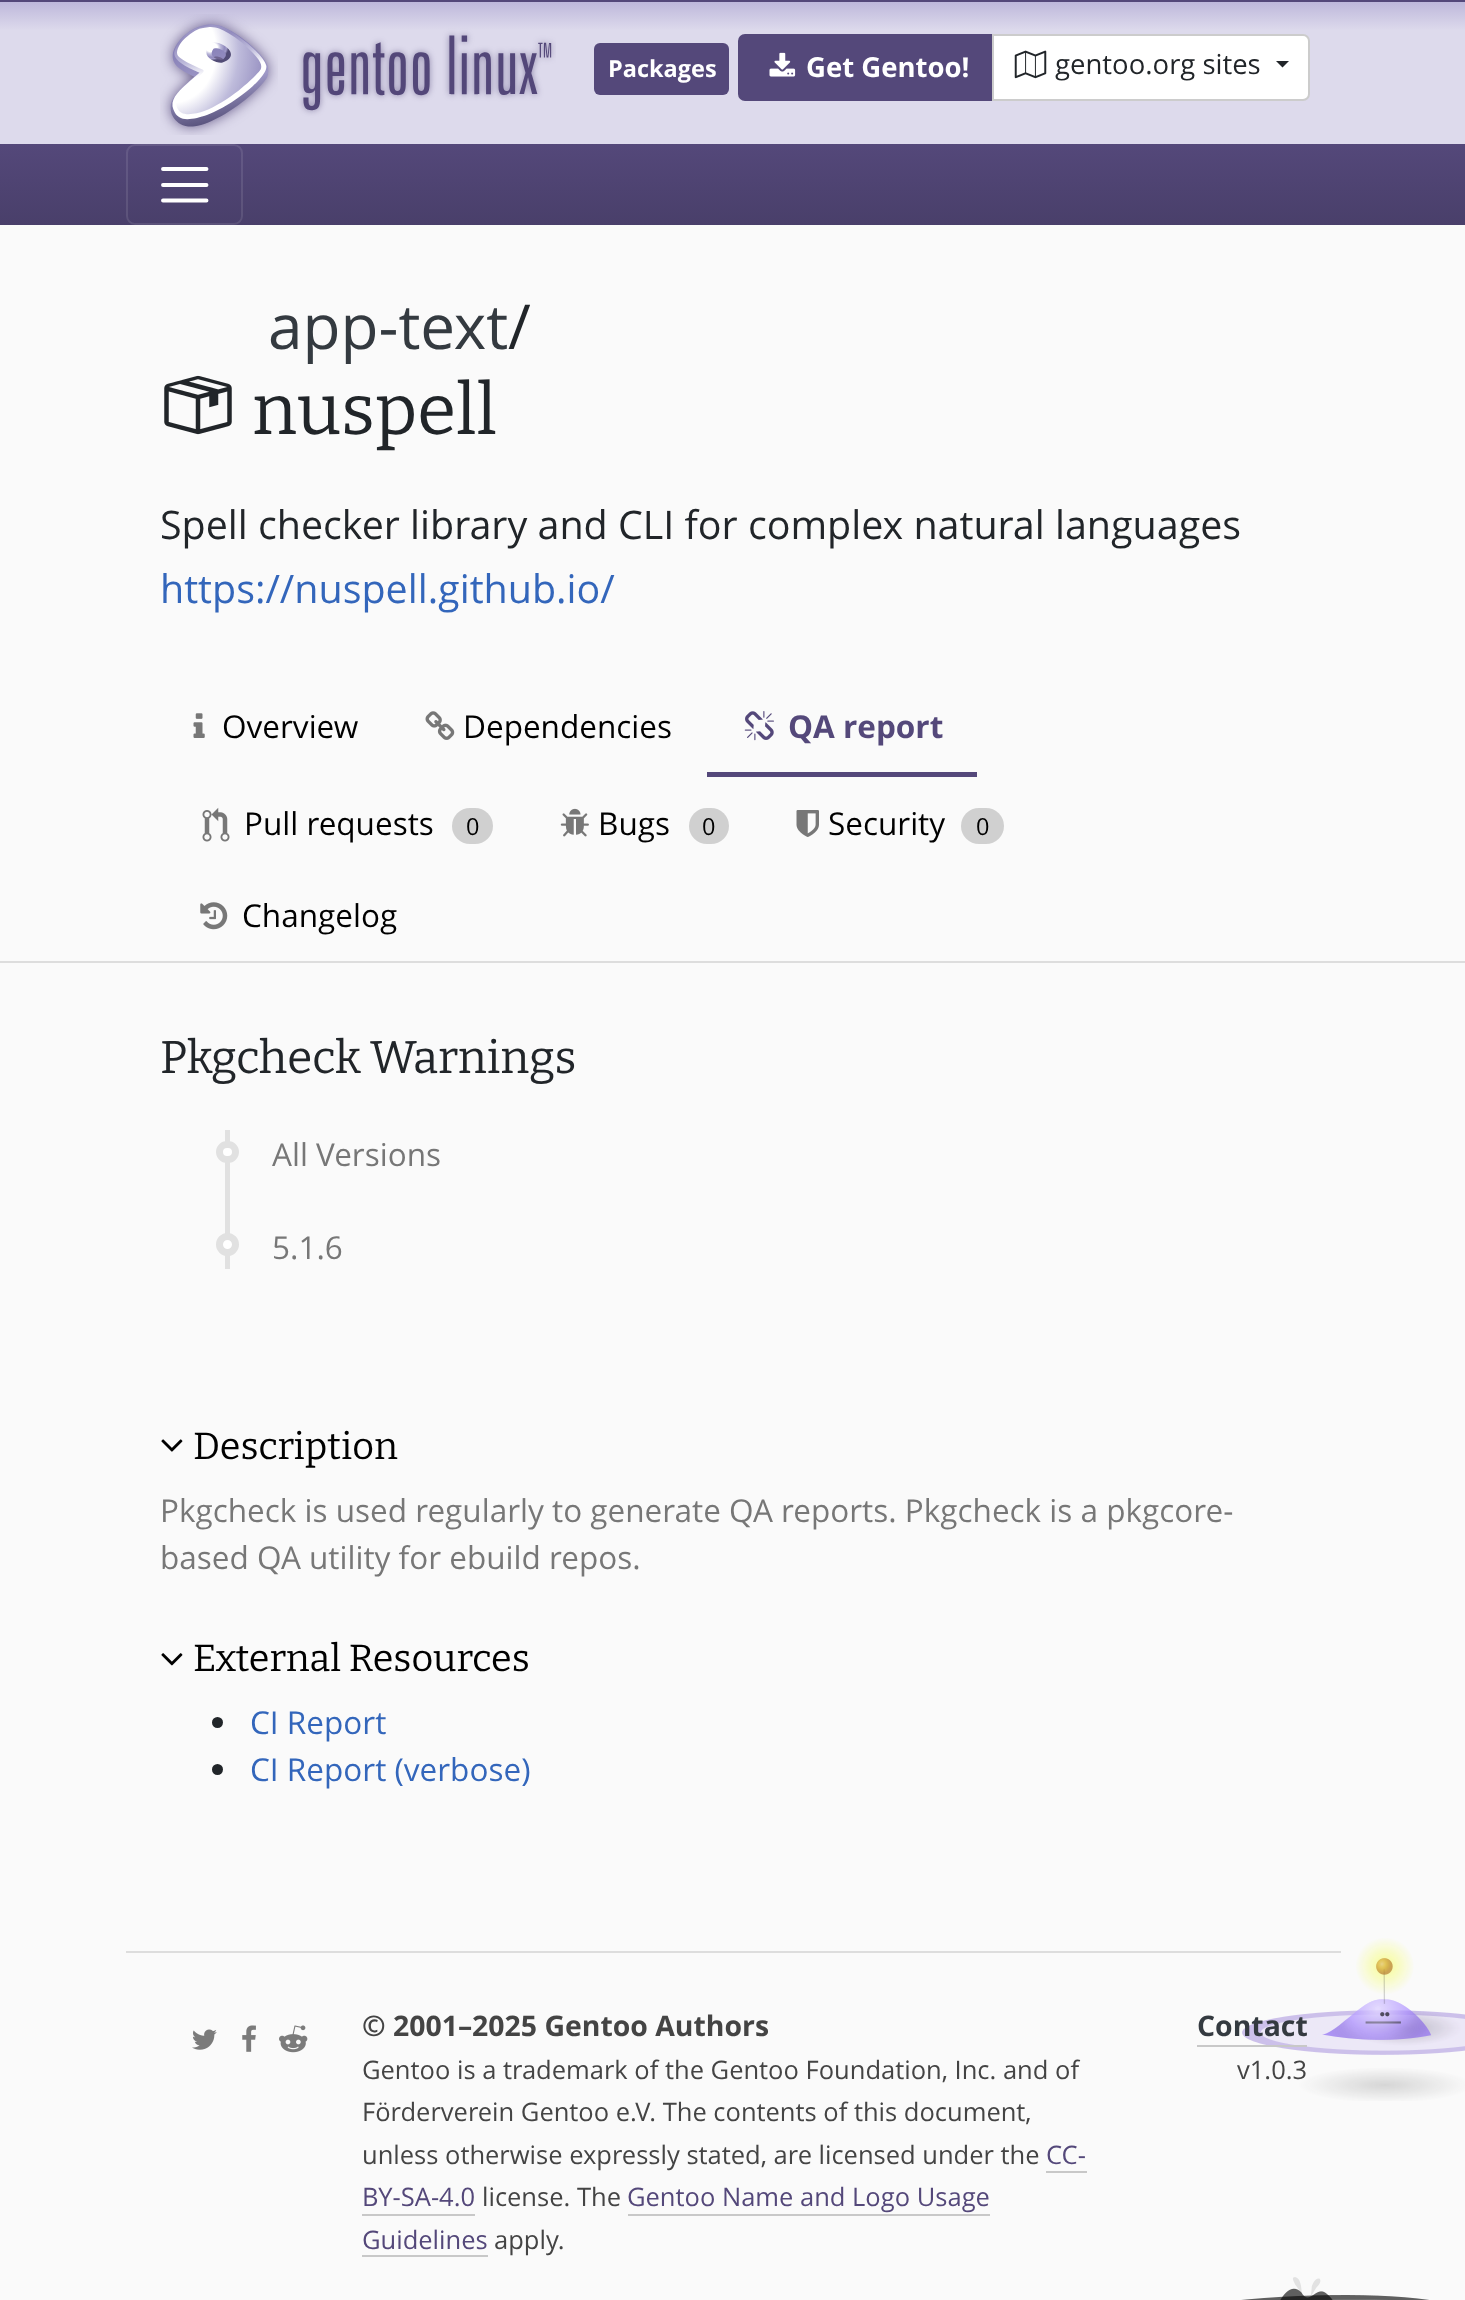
<!DOCTYPE html>
<meta charset="utf-8">
<style>body { margin: 0 } canvas { display: block }</style>
<canvas id="canvas" width="1465" height="2300"></canvas>
<script type="module">
  const canvas = document.getElementById("canvas");
  const ctx = canvas.getContext("2d");
  ctx.miterLimit = 4;
  ctx.fontKerning = "normal";
  async function loadImage(src) {
    const img = new Image();
    img.src = src;
    await img.decode();
    return img;
  }
  let gradient;

  ctx.fillStyle = "#fafafa";
  ctx.fillRect(0, 0, 1465, 2300);
  ctx.fillStyle = "#54487a";
  ctx.fillRect(0, 0, 1465, 2);
  gradient = ctx.createLinearGradient(734, 2.2, 734, 144);
  gradient.addColorStop(0, "#beb8db");
  gradient.addColorStop(0.2, "#dddaec");
  ctx.fillStyle = gradient;
  ctx.fillRect(0, 2, 1465, 142);
  ctx.drawImage(await loadImage("img1.png"), 160, 14, 396, 121);
  ctx.fillStyle = "#54487a";
  ctx.beginPath();
  ctx.roundRect(594, 43, 135, 52, 6);
  ctx.fill();
  ctx.font = "bold 23.5px Open Sans";
  ctx.fillStyle = "#ffffff";
  ctx.fillText("Packages", 608, 77);
  ctx.fillStyle = "#54487a";
  ctx.beginPath();
  ctx.roundRect(739, 35, 255, 65, [6, 0, 0, 6]);
  ctx.fill();
  ctx.strokeStyle = "#54487a";
  ctx.lineWidth = 2;
  ctx.stroke();
  ctx.drawImage(await loadImage("img2.png"), 769, 52, 27, 25);
  ctx.font = "bold 27.5px Open Sans";
  ctx.fillStyle = "#ffffff";
  ctx.fillText("Get Gentoo!", 806, 77);
  ctx.beginPath();
  ctx.roundRect(993, 35, 316, 65, [0, 6, 6, 0]);
  ctx.fill();
  ctx.strokeStyle = "#cccccc";
  ctx.stroke();
  ctx.drawImage(await loadImage("img3.png"), 1014, 50, 33, 29);
  ctx.font = "27.5px Open Sans";
  ctx.fillStyle = "#212529";
  ctx.fillText("gentoo.org sites", 1055, 74);
  ctx.beginPath();
  ctx.moveTo(1276, 61);
  ctx.lineTo(1289, 61);
  ctx.lineTo(1282.5, 67.5);
  ctx.closePath();
  ctx.fill();
  gradient = ctx.createLinearGradient(734, 144, 734, 225);
  gradient.addColorStop(0, "#54487a");
  gradient.addColorStop(1, "#493f6a");
  ctx.fillStyle = gradient;
  ctx.fillRect(0, 144, 1465, 81);
  ctx.beginPath();
  ctx.roundRect(127, 145, 115, 79, 8);
  ctx.strokeStyle = "rgba(255, 255, 255, 0.1)";
  ctx.stroke();
  ctx.beginPath();
  ctx.moveTo(163, 169);
  ctx.lineTo(206.5, 169);
  ctx.moveTo(163, 185);
  ctx.lineTo(206.5, 185);
  ctx.moveTo(163, 200.5);
  ctx.lineTo(206.5, 200.5);
  ctx.strokeStyle = "#ffffff";
  ctx.lineWidth = 3.9;
  ctx.lineCap = "round";
  ctx.stroke();
  ctx.font = "62px Open Sans";
  ctx.fillStyle = "#343a40";
  ctx.fillText("app-text", 268, 349);
  ctx.fillStyle = "#212529";
  ctx.fillText("/", 508, 349);
  ctx.drawImage(await loadImage("img4.png"), 164, 375, 68, 60);
  ctx.font = "71px Bitter";
  ctx.fillText("nuspell", 252, 434);
  ctx.font = "39.4px Open Sans";
  ctx.fillText("Spell checker library and CLI for complex natural languages", 160, 539);
  ctx.fillStyle = "#3366bb";
  ctx.fillText("https://nuspell.github.io/", 160, 603);
  ctx.drawImage(await loadImage("img5.png"), 193, 713, 12, 25);
  ctx.font = "31.5px Open Sans";
  ctx.fillStyle = "#000000";
  ctx.fillText("Overview", 222, 738);
  ctx.drawImage(await loadImage("img6.png"), 425, 711, 30, 29);
  ctx.fillText("Dependencies", 463, 738);
  ctx.fillStyle = "#54487a";
  ctx.fillRect(707, 772, 270, 5);
  ctx.drawImage(await loadImage("img7.png"), 744, 711, 30, 30);
  ctx.font = "bold 31.5px Open Sans";
  ctx.fillText("QA report", 788, 738);
  ctx.drawImage(await loadImage("img8.png"), 202, 807, 28, 35);
  ctx.font = "31.5px Open Sans";
  ctx.fillStyle = "#000000";
  ctx.fillText("Pull requests", 244, 835);
  ctx.fillStyle = "#d0d0d0";
  ctx.beginPath();
  ctx.roundRect(452, 808, 41, 36, 18);
  ctx.fill();
  ctx.font = "23.5px Open Sans";
  ctx.fillStyle = "#000000";
  ctx.fillText("0", 466, 835);
  ctx.drawImage(await loadImage("img9.png"), 560, 808, 29, 29);
  ctx.font = "31.5px Open Sans";
  ctx.fillText("Bugs", 598, 835);
  ctx.fillStyle = "#d0d0d0";
  ctx.beginPath();
  ctx.roundRect(689, 808, 40, 36, 18);
  ctx.fill();
  ctx.font = "23.5px Open Sans";
  ctx.fillStyle = "#000000";
  ctx.fillText("0", 702, 835);
  ctx.drawImage(await loadImage("img10.png"), 796, 810, 23, 27);
  ctx.font = "31.5px Open Sans";
  ctx.fillText("Security", 828, 835);
  ctx.fillStyle = "#d0d0d0";
  ctx.beginPath();
  ctx.roundRect(961, 808, 43, 36, 18);
  ctx.fill();
  ctx.font = "23.5px Open Sans";
  ctx.fillStyle = "#000000";
  ctx.fillText("0", 976, 835);
  ctx.drawImage(await loadImage("img11.png"), 200, 902, 28, 28);
  ctx.font = "31.5px Open Sans";
  ctx.fillText("Changelog", 242, 927);
  ctx.fillStyle = "#dddddd";
  ctx.fillRect(0, 961, 1465, 2);
  ctx.font = "45.75px Bitter";
  ctx.fillStyle = "#212529";
  ctx.fillText("Pkgcheck Warnings", 160, 1073);
  ctx.fillStyle = "#e1e1e1";
  ctx.fillRect(225, 1130, 5, 139);
  ctx.fillStyle = "#ffffff";
  ctx.beginPath();
  ctx.roundRect(219.5, 1144.5, 16, 15, 7.5);
  ctx.fill();
  ctx.strokeStyle = "#e1e1e1";
  ctx.lineWidth = 7;
  ctx.stroke();
  ctx.font = "31.5px Open Sans";
  ctx.fillStyle = "#777777";
  ctx.fillText("All Versions", 272, 1166);
  ctx.fillStyle = "#ffffff";
  ctx.beginPath();
  ctx.arc(227.5, 1244.5, 8, 0, Math.PI * 2);
  ctx.fill();
  ctx.stroke();
  ctx.fillStyle = "#777777";
  ctx.fillText("5.1.6", 272, 1259);
  ctx.drawImage(await loadImage("img12.png"), 161, 1439, 22, 13);
  ctx.font = "37.75px Bitter";
  ctx.fillStyle = "#000000";
  ctx.fillText("Description", 193, 1459);
  ctx.font = "31.5px Open Sans";
  ctx.fillStyle = "#777777";
  ctx.fillText("Pkgcheck is used regularly to generate QA reports. Pkgcheck is a pkgcore-", 160, 1522);
  ctx.fillText("based QA utility for ebuild repos.", 160, 1569);
  ctx.drawImage(await loadImage("img13.png"), 161, 1653, 22, 13);
  ctx.font = "37.75px Bitter";
  ctx.fillStyle = "#000000";
  ctx.fillText("External Resources", 193, 1671);
  ctx.fillStyle = "#212529";
  ctx.beginPath();
  ctx.arc(217.5, 1722.5, 5.5, 0, Math.PI * 2);
  ctx.fill();
  ctx.font = "31.5px Open Sans";
  ctx.fillStyle = "#3366bb";
  ctx.fillText("CI Report", 250, 1734);
  ctx.fillStyle = "#212529";
  ctx.beginPath();
  ctx.arc(217.5, 1769.5, 5.5, 0, Math.PI * 2);
  ctx.fill();
  ctx.fillStyle = "#3366bb";
  ctx.fillText("CI Report (verbose)", 250, 1781);
  ctx.drawImage(await loadImage("img14.png"), 1242, 1938, 223, 163);
  ctx.drawImage(await loadImage("img15.png"), 1241, 2277, 188, 23);
  ctx.fillStyle = "#dddddd";
  ctx.fillRect(126, 1951, 1215, 2);
  ctx.drawImage(await loadImage("img16.png"), 192, 2029, 25, 21);
  ctx.drawImage(await loadImage("img17.png"), 242, 2025, 14, 27);
  ctx.drawImage(await loadImage("img18.png"), 279, 2025, 29, 28);
  ctx.font = "bold 28.4px Open Sans";
  ctx.fillStyle = "#444444";
  ctx.fillText("© 2001–2025 Gentoo Authors", 362, 2036);
  ctx.font = "25.5px Open Sans";
  ctx.fillText("Gentoo is a trademark of the Gentoo Foundation, Inc. and of", 362, 2079);
  ctx.fillText("Förderverein Gentoo e.V. The contents of this document,", 362, 2121);
  ctx.fillText("unless otherwise expressly stated, are licensed under the", 362, 2164);
  ctx.fillStyle = "#54487a";
  ctx.fillText("CC-", 1046, 2164);
  ctx.fillStyle = "#c8c8c8";
  ctx.fillRect(1046, 2171, 41, 2);
  ctx.fillStyle = "#54487a";
  ctx.fillText("BY-SA-4.0", 362, 2206);
  ctx.fillStyle = "#c8c8c8";
  ctx.fillRect(362, 2214, 113, 2);
  ctx.fillStyle = "#444444";
  ctx.fillText("license. The", 482, 2206);
  ctx.fillStyle = "#54487a";
  ctx.fillText("Gentoo Name and Logo Usage", 627, 2206);
  ctx.fillStyle = "#c8c8c8";
  ctx.fillRect(628, 2214, 362, 2);
  ctx.fillStyle = "#54487a";
  ctx.fillText("Guidelines", 362, 2249);
  ctx.fillStyle = "#c8c8c8";
  ctx.fillRect(362, 2255, 126, 2);
  ctx.fillStyle = "#444444";
  ctx.fillText("apply.", 494, 2249);
  ctx.font = "bold 28.4px Open Sans";
  ctx.fillStyle = "#343a40";
  ctx.fillText("Contact", 1197, 2036);
  ctx.fillStyle = "#c8c8c8";
  ctx.fillRect(1197, 2045, 110, 2);
  ctx.font = "25.5px Open Sans";
  ctx.fillStyle = "#444444";
  ctx.fillText("v1.0.3", 1237, 2079);
</script>
